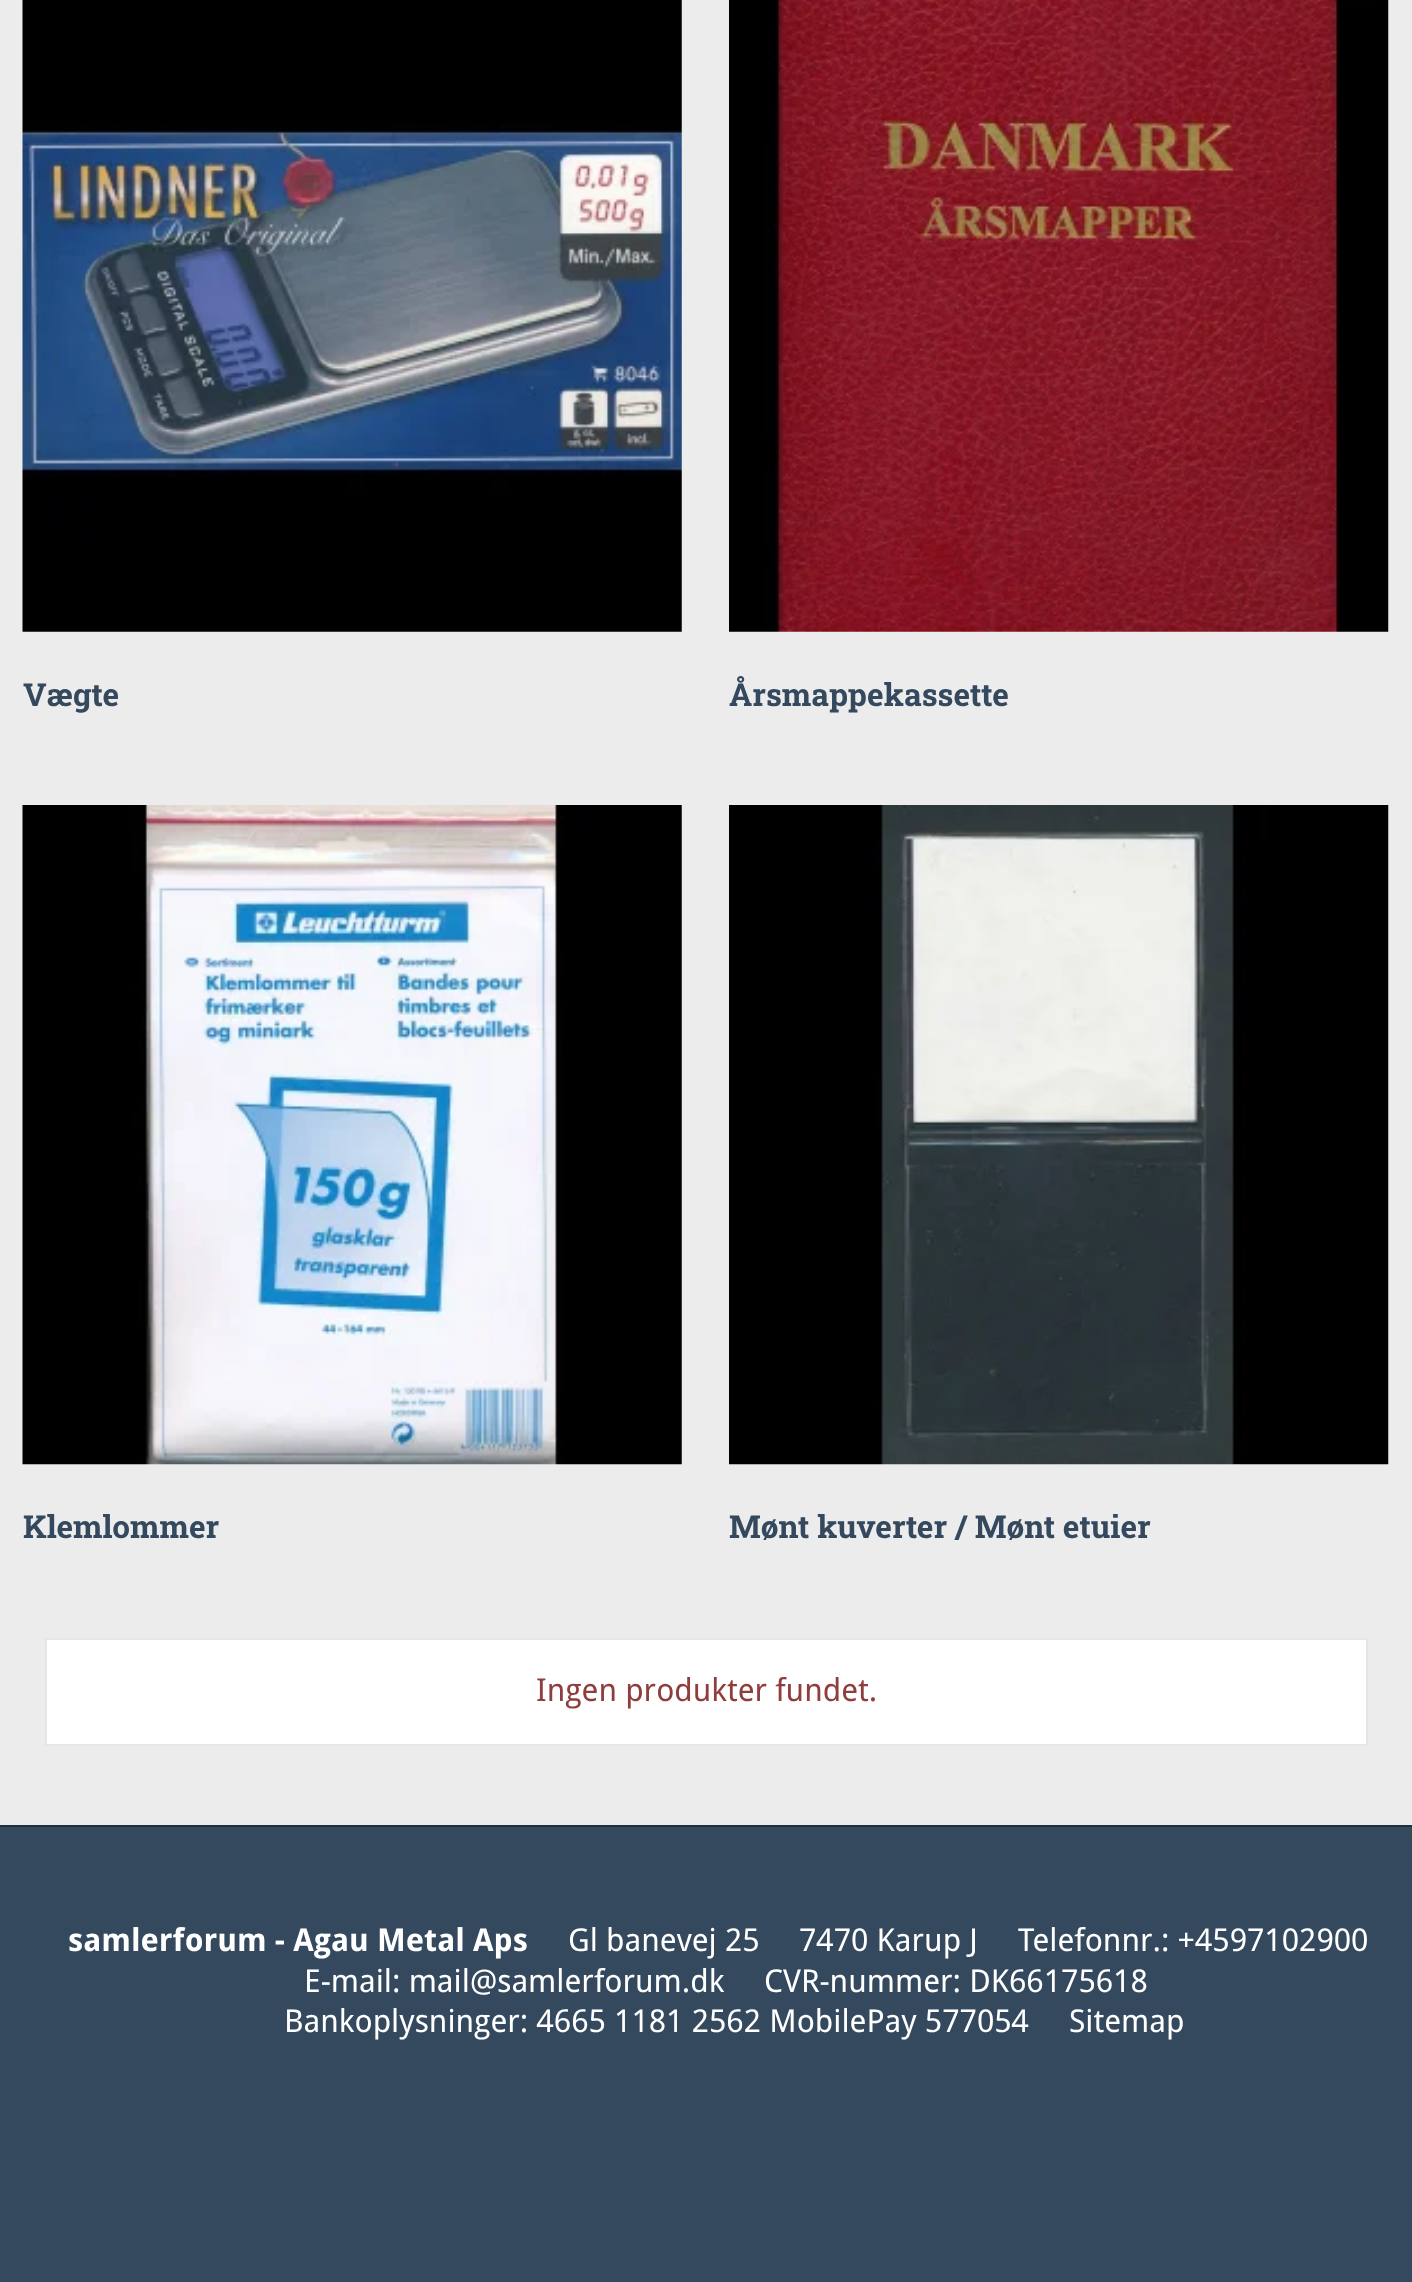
<!DOCTYPE html>
<meta charset="utf-8">
<style>body { margin: 0 } canvas { display: block }</style>
<canvas id="canvas" width="1412" height="2282"></canvas>
<script type="module">
  const canvas = document.getElementById("canvas");
  const ctx = canvas.getContext("2d");
  ctx.miterLimit = 4;
  ctx.fontKerning = "normal";
  async function loadImage(src) {
    const img = new Image();
    img.src = src;
    await img.decode();
    return img;
  }

  ctx.fillStyle = "#ececec";
  ctx.fillRect(0, 0, 1412, 2282);
  ctx.drawImage(await loadImage("img1.png"), 22, 0, 660, 632);
  ctx.font = "bold 31.5px Roboto Slab";
  ctx.fillStyle = "#34485e";
  ctx.fillText("Vægte", 23, 706);
  ctx.drawImage(await loadImage("img2.png"), 729, 0, 660, 632);
  ctx.fillText("Årsmappekassette", 729, 706);
  ctx.drawImage(await loadImage("img3.png"), 22, 805, 660, 660);
  ctx.fillText("Klemlommer", 23, 1538);
  ctx.drawImage(await loadImage("img4.png"), 729, 805, 660, 660);
  ctx.fillText("Mønt kuverter / Mønt etuier", 729, 1538);
  ctx.fillStyle = "#ffffff";
  ctx.beginPath();
  ctx.rect(46, 1639, 1321, 106);
  ctx.fill();
  ctx.strokeStyle = "#e6e6e6";
  ctx.lineWidth = 2;
  ctx.stroke();
  ctx.font = "31.5px Droid Sans";
  ctx.fillStyle = "#8f3d3d";
  ctx.fillText("Ingen produkter fundet.", 536, 1701);
  ctx.fillStyle = "#34485e";
  ctx.fillRect(0, 1827, 1412, 455);
  ctx.fillStyle = "#222f3d";
  ctx.fillRect(0, 1825, 1412, 2);
  ctx.font = "bold 31.5px Droid Sans";
  ctx.fillStyle = "#ffffff";
  ctx.fillText("samlerforum - Agau Metal Aps", 68, 1951);
  ctx.font = "31.5px Droid Sans";
  ctx.fillText("Gl banevej 25", 568, 1951);
  ctx.fillText("7470 Karup J", 799, 1951);
  ctx.fillText("Telefonnr.: +4597102900", 1018, 1951);
  ctx.fillText("E-mail: mail@samlerforum.dk", 304, 1992);
  ctx.fillText("CVR-nummer: DK66175618", 764, 1992);
  ctx.fillText("Bankoplysninger: 4665 1181 2562 MobilePay 577054", 284, 2032);
  ctx.fillText("Sitemap", 1069, 2032);
</script>
